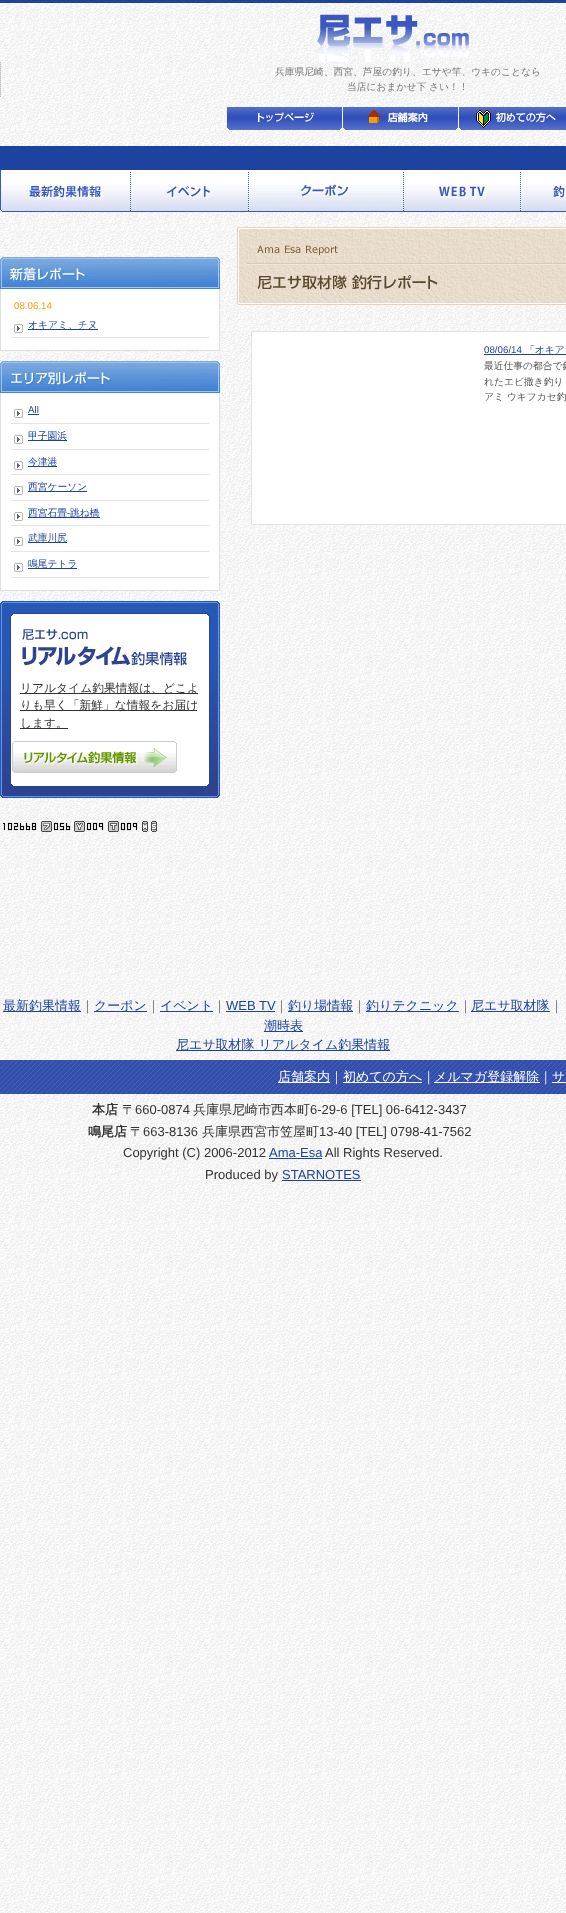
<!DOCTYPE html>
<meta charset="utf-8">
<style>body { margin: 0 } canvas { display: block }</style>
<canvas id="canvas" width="566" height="1913"></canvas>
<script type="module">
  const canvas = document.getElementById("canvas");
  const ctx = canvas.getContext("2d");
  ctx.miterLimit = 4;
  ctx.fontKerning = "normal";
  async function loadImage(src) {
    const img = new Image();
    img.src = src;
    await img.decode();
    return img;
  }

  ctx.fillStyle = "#ffffff";
  ctx.fillRect(0, 0, 566, 1913);
  ctx.drawImage(await loadImage("img1.png"), 0, 3, 566, 1910);
  ctx.fillStyle = "#1c439f";
  ctx.fillRect(0, 0, 566, 3);
  ctx.drawImage(await loadImage("img2.png"), 314, 13, 158, 49);
  ctx.drawImage(await loadImage("img3.png"), 0, 62, 1, 35);
  ctx.font = "500 9.75px WenQuanYi Zen Hei";
  ctx.fillStyle = "#777777";
  ctx.fillText("兵庫県尼崎、西宮、芦屋の釣り、エサや竿、ウキのことなら", 275, 75);
  ctx.fillText("当店におまかせ下 さい！！", 347, 90);
  ctx.drawImage(await loadImage("img4.png"), 227, 107, 115, 23);
  ctx.drawImage(await loadImage("img5.png"), 343, 107, 115, 23);
  ctx.drawImage(await loadImage("img6.png"), 459, 107, 107, 23);
  ctx.fillStyle = "#1c439f";
  ctx.fillRect(0, 146, 566, 24);
  ctx.drawImage(await loadImage("img7.png"), 0, 170, 131, 42);
  ctx.drawImage(await loadImage("img8.png"), 131, 170, 118, 42);
  ctx.drawImage(await loadImage("img9.png"), 249, 170, 155, 42);
  ctx.drawImage(await loadImage("img10.png"), 404, 170, 117, 42);
  ctx.drawImage(await loadImage("img11.png"), 521, 170, 45, 42);
  ctx.drawImage(await loadImage("img12.png"), 0, 257, 220, 32);
  ctx.fillStyle = "#ffffff";
  ctx.fillRect(1, 289, 218, 61);
  ctx.fillStyle = "#e0dfe3";
  ctx.fillRect(219, 289, 1, 62);
  ctx.fillRect(0, 350, 220, 1);
  ctx.fillRect(0, 289, 1, 62);
  ctx.font = "9.75px Liberation Sans";
  ctx.fillStyle = "#ff9900";
  ctx.fillText("08.06.14", 14, 309);
  ctx.drawImage(await loadImage("img13.png"), 14, 324, 9, 9);
  ctx.fillStyle = "#e4e4e4";
  ctx.fillRect(11, 337, 198, 1);
  ctx.fillStyle = "#1c439f";
  ctx.fillRect(28, 329, 70, 1);
  ctx.font = "500 9.75px WenQuanYi Zen Hei";
  ctx.fillText("オキアミ、チヌ", 28, 328);
  ctx.drawImage(await loadImage("img14.png"), 0, 361, 220, 32);
  ctx.fillStyle = "#ffffff";
  ctx.fillRect(1, 393, 218, 197);
  ctx.fillStyle = "#e0dfe3";
  ctx.fillRect(219, 393, 1, 198);
  ctx.fillRect(0, 590, 220, 1);
  ctx.fillRect(0, 393, 1, 198);
  ctx.drawImage(await loadImage("img13.png"), 14, 409, 9, 9);
  ctx.fillStyle = "#e4e4e4";
  ctx.fillRect(11, 423, 198, 1);
  ctx.font = "9.75px Liberation Sans";
  ctx.fillStyle = "#1c439f";
  ctx.fillText("All", 28, 413);
  ctx.fillRect(28, 414, 11, 1);
  ctx.drawImage(await loadImage("img13.png"), 14, 435, 9, 9);
  ctx.fillStyle = "#e4e4e4";
  ctx.fillRect(11, 449, 198, 1);
  ctx.fillStyle = "#1c439f";
  ctx.fillRect(28, 440, 39, 1);
  ctx.font = "500 9.75px WenQuanYi Zen Hei";
  ctx.fillText("甲子園浜", 28, 439);
  ctx.drawImage(await loadImage("img13.png"), 14, 461, 9, 9);
  ctx.fillStyle = "#e4e4e4";
  ctx.fillRect(11, 474, 198, 1);
  ctx.fillStyle = "#1c439f";
  ctx.fillRect(28, 466, 29, 1);
  ctx.fillText("今津港", 28, 465);
  ctx.drawImage(await loadImage("img13.png"), 14, 486, 9, 9);
  ctx.fillStyle = "#e4e4e4";
  ctx.fillRect(11, 500, 198, 1);
  ctx.fillStyle = "#1c439f";
  ctx.fillRect(28, 491, 59, 1);
  ctx.fillText("西宮ケーソン", 28, 490);
  ctx.drawImage(await loadImage("img13.png"), 14, 512, 9, 9);
  ctx.fillStyle = "#e4e4e4";
  ctx.fillRect(11, 525, 198, 1);
  ctx.fillStyle = "#1c439f";
  ctx.fillRect(28, 517, 72, 1);
  ctx.fillText("西宮石畳", 28, 516);
  ctx.font = "9.75px Liberation Sans";
  ctx.fillText("-", 67, 516);
  ctx.font = "500 9.75px WenQuanYi Zen Hei";
  ctx.fillText("跳ね橋", 70, 516);
  ctx.drawImage(await loadImage("img13.png"), 14, 537, 9, 9);
  ctx.fillStyle = "#e4e4e4";
  ctx.fillRect(11, 551, 198, 1);
  ctx.fillStyle = "#1c439f";
  ctx.fillRect(28, 542, 39, 1);
  ctx.fillText("武庫川尻", 28, 541);
  ctx.drawImage(await loadImage("img13.png"), 14, 563, 9, 9);
  ctx.fillStyle = "#e4e4e4";
  ctx.fillRect(11, 577, 198, 1);
  ctx.fillStyle = "#1c439f";
  ctx.fillRect(28, 568, 49, 1);
  ctx.fillText("鳴尾テトラ", 28, 567);
  ctx.drawImage(await loadImage("img15.png"), 0, 601, 220, 78);
  ctx.drawImage(await loadImage("img16.png"), 0, 679, 220, 104);
  ctx.fillStyle = "#333333";
  ctx.fillRect(20, 693, 178, 1);
  ctx.font = "500 11.75px WenQuanYi Zen Hei";
  ctx.fillText("リアルタイム釣果情報は、どこよ", 20, 692);
  ctx.fillRect(20, 710, 177, 1);
  ctx.fillText("りも早く「新鮮」な情報をお届け", 20, 709);
  ctx.fillRect(20, 728, 48, 1);
  ctx.fillText("します。", 20, 727);
  ctx.drawImage(await loadImage("img17.png"), 12, 741, 165, 32);
  ctx.drawImage(await loadImage("img18.png"), 0, 783, 220, 15);
  ctx.drawImage(await loadImage("img19.png"), 2, 822, 4, 9);
  ctx.drawImage(await loadImage("img20.png"), 7, 822, 6, 9);
  ctx.drawImage(await loadImage("img21.png"), 13, 822, 6, 9);
  ctx.drawImage(await loadImage("img22.png"), 19, 822, 6, 9);
  ctx.drawImage(await loadImage("img23.png"), 25, 822, 6, 9);
  ctx.drawImage(await loadImage("img24.png"), 31, 822, 6, 9);
  ctx.drawImage(await loadImage("img25.png"), 41, 821, 11, 11);
  ctx.drawImage(await loadImage("img26.png"), 53, 822, 6, 9);
  ctx.drawImage(await loadImage("img27.png"), 59, 822, 6, 9);
  ctx.drawImage(await loadImage("img28.png"), 65, 822, 6, 9);
  ctx.drawImage(await loadImage("img29.png"), 74, 821, 11, 11);
  ctx.drawImage(await loadImage("img20.png"), 86, 822, 6, 9);
  ctx.drawImage(await loadImage("img30.png"), 92, 822, 6, 9);
  ctx.drawImage(await loadImage("img31.png"), 98, 822, 6, 9);
  ctx.drawImage(await loadImage("img32.png"), 108, 821, 11, 11);
  ctx.drawImage(await loadImage("img33.png"), 120, 822, 6, 9);
  ctx.drawImage(await loadImage("img34.png"), 126, 822, 6, 9);
  ctx.drawImage(await loadImage("img35.png"), 132, 822, 6, 9);
  ctx.drawImage(await loadImage("img36.png"), 142, 821, 6, 11);
  ctx.drawImage(await loadImage("img37.png"), 151, 821, 6, 11);
  ctx.drawImage(await loadImage("img38.png"), 237, 227, 329, 78);
  ctx.fillStyle = "#ffffff";
  ctx.beginPath();
  ctx.rect(251.5, 331.5, 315, 193);
  ctx.fill();
  ctx.strokeStyle = "#e2e2e2";
  ctx.stroke();
  ctx.font = "9.75px Liberation Sans";
  ctx.fillStyle = "#1c439f";
  ctx.fillText("08/06/14", 484, 353);
  ctx.fillRect(484, 354, 82, 1);
  ctx.font = "500 9.75px WenQuanYi Zen Hei";
  ctx.fillText("「オキア", 525, 353);
  ctx.fillStyle = "#555555";
  ctx.fillText("最近仕事の都合で釣", 484, 369);
  ctx.fillText("れたエビ撒き釣り", 484, 385);
  ctx.fillText("アミ ウキフカセ釣", 484, 400);
  ctx.fillStyle = "#1c439f";
  ctx.fillRect(3, 1011, 78, 1);
  ctx.font = "500 13px WenQuanYi Zen Hei";
  ctx.fillText("最新釣果情報", 3, 1010);
  ctx.fillStyle = "#666666";
  ctx.fillText("｜", 81, 1010);
  ctx.fillStyle = "#1c439f";
  ctx.fillRect(94, 1011, 53, 1);
  ctx.fillText("クーポン", 94, 1010);
  ctx.fillStyle = "#666666";
  ctx.fillText("｜", 147, 1010);
  ctx.fillStyle = "#1c439f";
  ctx.fillRect(160, 1011, 53, 1);
  ctx.fillText("イベント", 160, 1010);
  ctx.fillStyle = "#666666";
  ctx.fillText("｜", 213, 1010);
  ctx.font = "13px Liberation Sans";
  ctx.fillStyle = "#1c439f";
  ctx.fillText("WEB TV", 226, 1010);
  ctx.fillRect(226, 1011, 49, 1);
  ctx.font = "500 13px WenQuanYi Zen Hei";
  ctx.fillStyle = "#666666";
  ctx.fillText("｜", 275, 1010);
  ctx.fillStyle = "#1c439f";
  ctx.fillRect(288, 1011, 65, 1);
  ctx.fillText("釣り場情報", 288, 1010);
  ctx.fillStyle = "#666666";
  ctx.fillText("｜", 353, 1010);
  ctx.fillStyle = "#1c439f";
  ctx.fillRect(366, 1011, 93, 1);
  ctx.fillText("釣りテクニック", 366, 1010);
  ctx.fillStyle = "#666666";
  ctx.fillText("｜", 459, 1010);
  ctx.fillStyle = "#1c439f";
  ctx.fillRect(471, 1011, 79, 1);
  ctx.fillText("尼エサ取材隊", 471, 1010);
  ctx.fillStyle = "#666666";
  ctx.fillText("｜", 550, 1010);
  ctx.fillStyle = "#1c439f";
  ctx.fillRect(264, 1031, 39, 1);
  ctx.fillText("潮時表", 264, 1030);
  ctx.fillRect(176, 1050, 214, 1);
  ctx.fillText("尼エサ取材隊 リアルタイム釣果情報", 176, 1049);
  ctx.drawImage(await loadImage("img39.png"), 0, 1060, 566, 34);
  ctx.fillStyle = "#ffffff";
  ctx.fillRect(278, 1082, 52, 1);
  ctx.fillText("店舗案内｜", 278, 1081);
  ctx.fillRect(343, 1082, 79, 1);
  ctx.fillText("初めての方へ｜", 343, 1081);
  ctx.fillRect(434, 1082, 106, 1);
  ctx.fillText("メルマガ登録解除｜", 434, 1081);
  ctx.fillRect(552, 1082, 14, 1);
  ctx.fillText("サ", 552, 1081);
  ctx.font = "bold 13px WenQuanYi Zen Hei";
  ctx.fillStyle = "#333333";
  ctx.fillText("本店", 92, 1114);
  ctx.font = "500 13px WenQuanYi Zen Hei";
  ctx.fillText("〒", 122, 1114);
  ctx.font = "13px Liberation Sans";
  ctx.fillText("660-0874", 135, 1114);
  ctx.font = "500 13px WenQuanYi Zen Hei";
  ctx.fillText("兵庫県尼崎市西本町", 193, 1114);
  ctx.font = "13px Liberation Sans";
  ctx.fillText("6-29-6 [TEL] 06-6412-3437", 310, 1114);
  ctx.font = "bold 13px WenQuanYi Zen Hei";
  ctx.fillText("鳴尾店", 88, 1136);
  ctx.font = "500 13px WenQuanYi Zen Hei";
  ctx.fillText("〒", 130, 1136);
  ctx.font = "13px Liberation Sans";
  ctx.fillText("663-8136", 143, 1136);
  ctx.font = "500 13px WenQuanYi Zen Hei";
  ctx.fillText("兵庫県西宮市笠屋町", 202, 1136);
  ctx.font = "13px Liberation Sans";
  ctx.fillText("13-40 [TEL] 0798-41-7562", 319, 1136);
  ctx.fillText("Copyright (C) 2006-2012", 123, 1157);
  ctx.fillStyle = "#1c439f";
  ctx.fillText("Ama-Esa", 269, 1157);
  ctx.fillRect(269, 1158, 53, 1);
  ctx.fillStyle = "#333333";
  ctx.fillText("All Rights Reserved.", 325, 1157);
  ctx.fillText("Produced by", 205, 1179);
  ctx.fillStyle = "#1c439f";
  ctx.fillText("STARNOTES", 282, 1179);
  ctx.fillRect(282, 1180, 79, 1);
</script>
